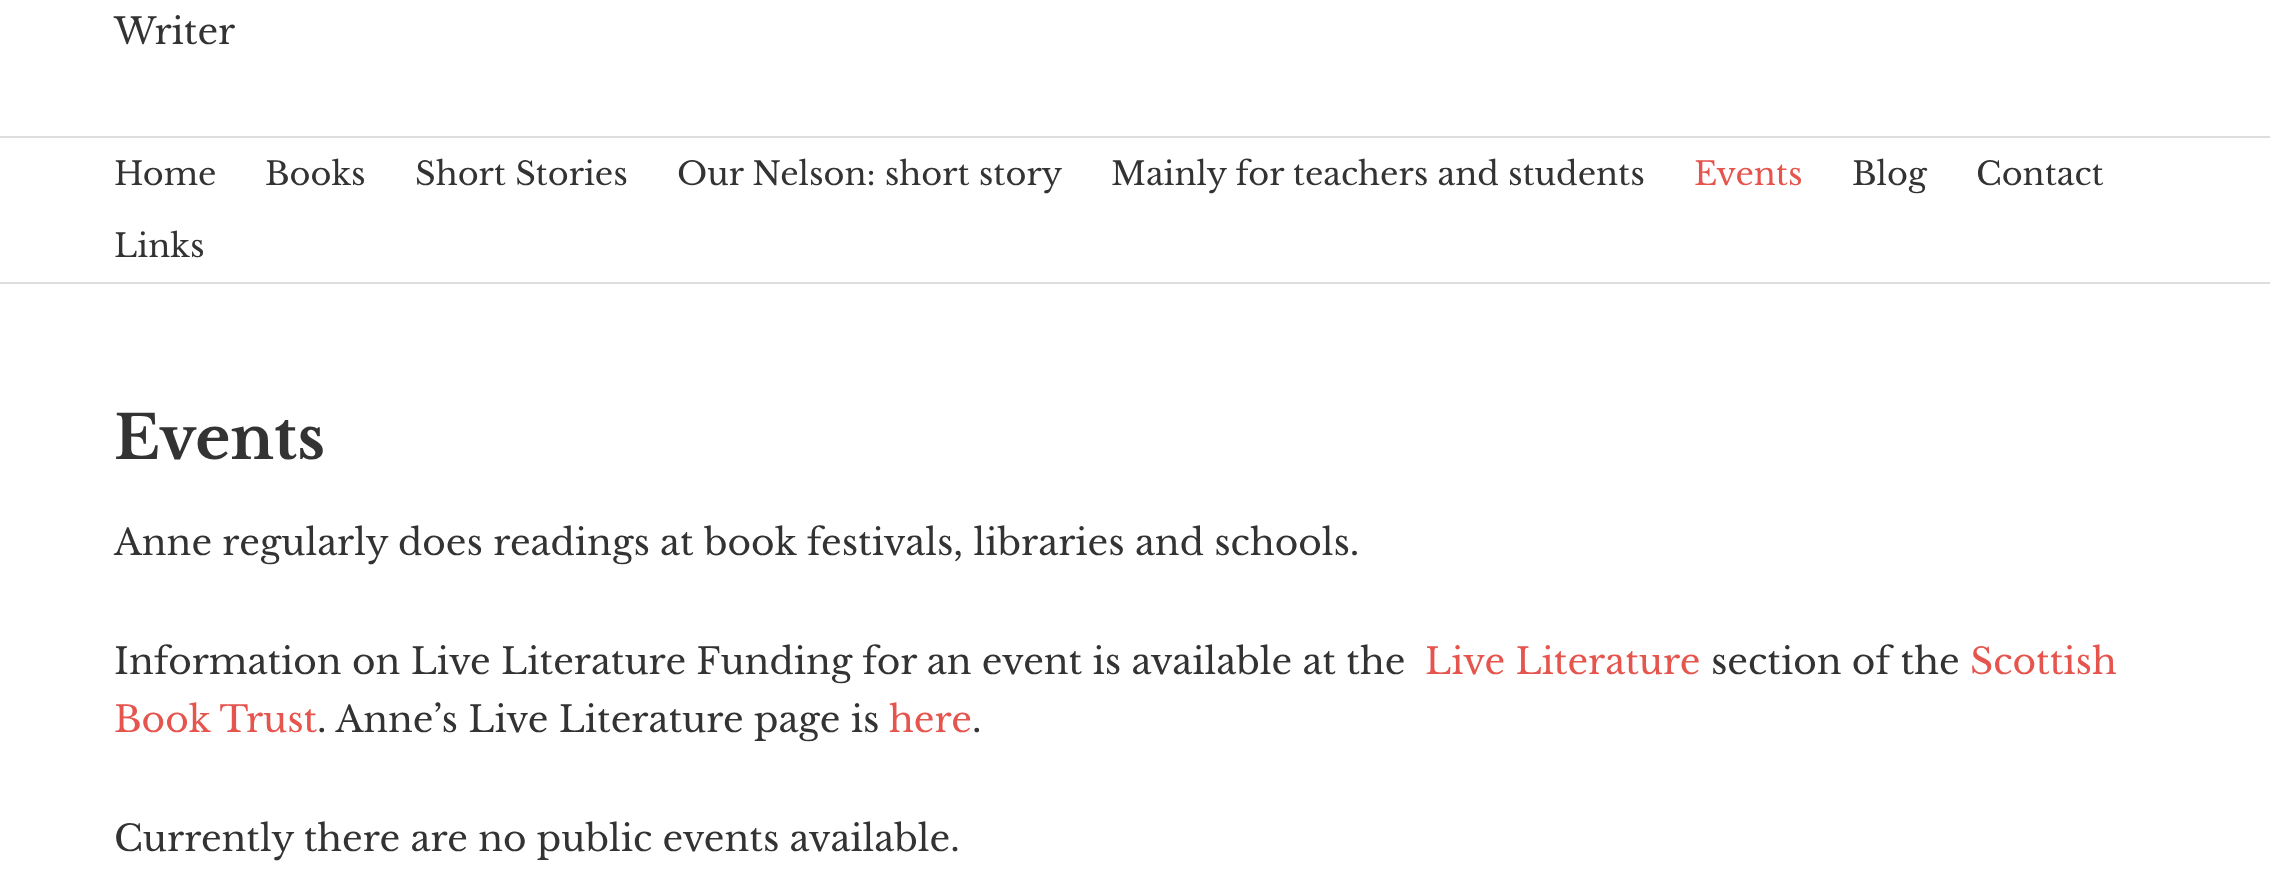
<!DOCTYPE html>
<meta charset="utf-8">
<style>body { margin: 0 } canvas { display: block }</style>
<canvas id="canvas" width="2270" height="878"></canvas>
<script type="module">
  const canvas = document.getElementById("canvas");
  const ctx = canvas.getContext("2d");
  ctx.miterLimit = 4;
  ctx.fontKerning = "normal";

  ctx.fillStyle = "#ffffff";
  ctx.fillRect(0, 0, 2270, 878);
  ctx.font = "36px Libre Baskerville";
  ctx.fillStyle = "#333333";
  ctx.fillText("Writer", 114, 44);
  ctx.fillStyle = "#dddddd";
  ctx.fillRect(0, 136, 2270, 2);
  ctx.fillRect(0, 282, 2270, 2);
  ctx.font = "32px Libre Baskerville";
  ctx.fillStyle = "#333333";
  ctx.fillText("Home", 114, 185);
  ctx.fillText("Books", 265, 185);
  ctx.fillText("Short Stories", 415, 185);
  ctx.fillText("Our Nelson: short story", 677, 185);
  ctx.fillText("Mainly for teachers and students", 1111, 185);
  ctx.fillStyle = "#e5554e";
  ctx.fillText("Events", 1694, 185);
  ctx.fillStyle = "#333333";
  ctx.fillText("Blog", 1852, 185);
  ctx.fillText("Contact", 1976, 185);
  ctx.fillText("Links", 114, 257);
  ctx.font = "bold 60px Libre Baskerville";
  ctx.fillText("Events", 114, 459);
  ctx.font = "36px Libre Baskerville";
  ctx.fillText("Anne regularly does readings at book festivals, libraries and schools.", 114, 555);
  ctx.fillText("Information on Live Literature Funding for an event is available at the", 114, 674);
  ctx.fillStyle = "#e5554e";
  ctx.fillText("Live Literature", 1425, 674);
  ctx.fillStyle = "#333333";
  ctx.fillText("section of the", 1711, 674);
  ctx.fillStyle = "#e5554e";
  ctx.fillText("Scottish", 1970, 674);
  ctx.fillText("Book Trust", 114, 732);
  ctx.fillStyle = "#333333";
  ctx.fillText(". Anne’s Live Literature page is", 317, 732);
  ctx.fillStyle = "#e5554e";
  ctx.fillText("here", 889, 732);
  ctx.fillStyle = "#333333";
  ctx.fillText(".", 972, 732);
  ctx.fillText("Currently there are no public events available.", 114, 851);
</script>
